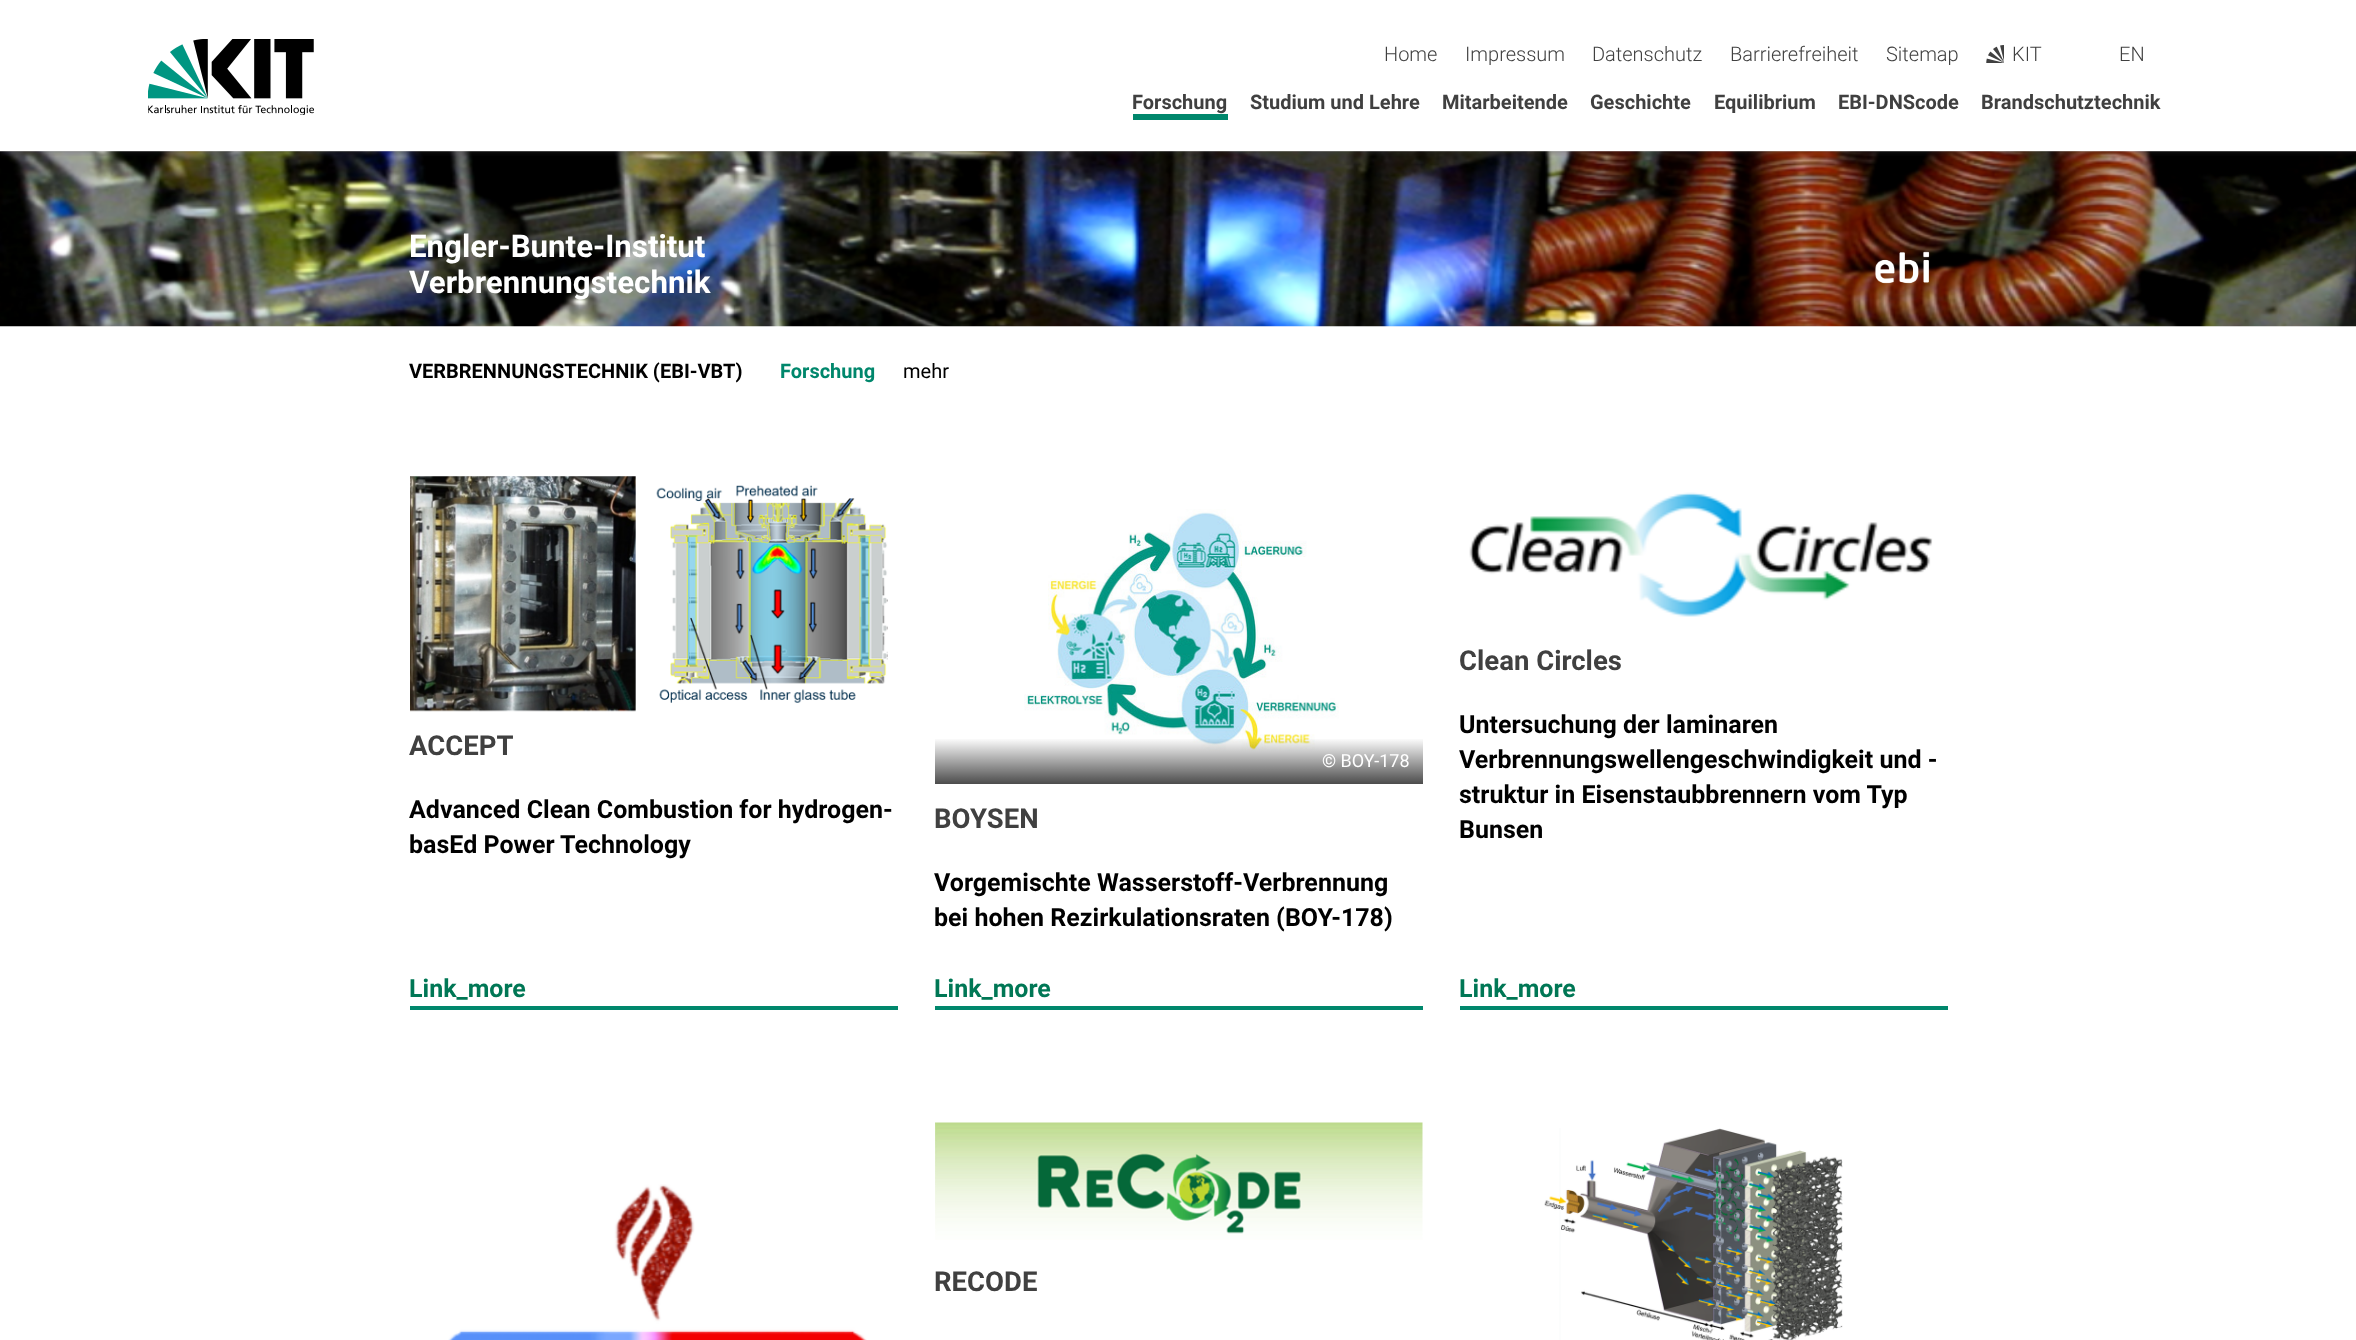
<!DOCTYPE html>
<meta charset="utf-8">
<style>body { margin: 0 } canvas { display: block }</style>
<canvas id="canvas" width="2356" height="1340"></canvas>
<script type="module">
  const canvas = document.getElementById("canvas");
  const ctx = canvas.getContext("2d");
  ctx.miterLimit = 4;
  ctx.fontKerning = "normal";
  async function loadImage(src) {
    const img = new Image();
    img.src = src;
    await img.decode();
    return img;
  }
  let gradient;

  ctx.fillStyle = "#ffffff";
  ctx.fillRect(0, 0, 2356, 1340);
  ctx.drawImage(await loadImage("img3.png"), 0, 151, 2356, 176);
  ctx.save();
  ctx.beginPath();
  ctx.rect(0, 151, 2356, 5);
  ctx.clip();
  ctx.fillStyle = "rgba(64, 64, 64, 0.5)";
  ctx.filter = "blur(3px)";
  ctx.beginPath();
  ctx.rect(0, 0, 2356, 151);
  ctx.fill();
  ctx.filter = "none";
  ctx.restore();
  ctx.drawImage(await loadImage("img1.png"), 148, 39, 166, 76);
  ctx.font = "300 20px Roboto";
  ctx.fillStyle = "#404040";
  ctx.fillText("Home", 1384, 61);
  ctx.fillText("Impressum", 1465, 61);
  ctx.fillText("Datenschutz", 1592, 61);
  ctx.fillText("Barrierefreiheit", 1730, 61);
  ctx.fillText("Sitemap", 1886, 61);
  ctx.drawImage(await loadImage("img2.png"), 1986, 45, 18, 18);
  ctx.fillText("KIT", 2012, 61);
  ctx.fillText("EN", 2119, 61);
  ctx.font = "bold 20px Roboto";
  ctx.fillText("Forschung", 1132, 109);
  ctx.fillStyle = "#00876c";
  ctx.fillRect(1133, 114, 95, 6);
  ctx.fillStyle = "#404040";
  ctx.fillText("Studium und Lehre", 1250, 109);
  ctx.fillText("Mitarbeitende", 1442, 109);
  ctx.fillText("Geschichte", 1590, 109);
  ctx.fillText("Equilibrium", 1714, 109);
  ctx.fillText("EBI-DNScode", 1838, 109);
  ctx.fillText("Brandschutztechnik", 1981, 109);
  ctx.font = "bold 31.25px Roboto";
  ctx.fillStyle = "#ffffff";
  ctx.fillText("Engler-Bunte-Institut", 409, 257);
  ctx.fillText("Verbrennungstechnik", 409, 293);
  ctx.drawImage(await loadImage("img4.png"), 1875, 251, 55, 33);
  ctx.font = "bold 20px Roboto";
  ctx.fillStyle = "#000000";
  ctx.fillText("VERBRENNUNGSTECHNIK (EBI-VBT)", 409, 378);
  ctx.fillStyle = "#00876c";
  ctx.fillText("Forschung", 780, 378);
  ctx.font = "20px Roboto";
  ctx.fillStyle = "#000000";
  ctx.fillText("mehr", 903, 378);
  ctx.drawImage(await loadImage("img5.png"), 410, 476, 478, 236);
  ctx.font = "bold 27.5px Roboto";
  ctx.fillStyle = "#404040";
  ctx.fillText("ACCEPT", 409, 755);
  ctx.font = "bold 25px Roboto";
  ctx.fillStyle = "#000000";
  ctx.fillText("Advanced Clean Combustion for hydrogen-", 409, 818);
  ctx.fillText("basEd Power Technology", 409, 853);
  ctx.fillStyle = "#00876c";
  ctx.fillRect(410, 1006, 488, 4);
  ctx.fillStyle = "#007755";
  ctx.fillText("Link_more", 409, 997);
  ctx.drawImage(await loadImage("img6.png"), 1024, 509, 315, 242);
  gradient = ctx.createLinearGradient(1179, 784, 1179, 738);
  gradient.addColorStop(0, "rgba(0, 0, 0, 0.7)");
  gradient.addColorStop(1, "rgba(0, 0, 0, 0)");
  ctx.fillStyle = gradient;
  ctx.fillRect(935, 739, 488, 45);
  ctx.font = "18px Roboto";
  ctx.fillStyle = "#ffffff";
  ctx.fillText("© BOY-178", 1322, 767);
  ctx.font = "bold 27.5px Roboto";
  ctx.fillStyle = "#404040";
  ctx.fillText("BOYSEN", 934, 828);
  ctx.font = "bold 25px Roboto";
  ctx.fillStyle = "#000000";
  ctx.fillText("Vorgemischte Wasserstoff-Verbrennung", 934, 891);
  ctx.fillText("bei hohen Rezirkulationsraten (BOY-178)", 934, 926);
  ctx.fillStyle = "#00876c";
  ctx.fillRect(935, 1006, 488, 4);
  ctx.fillStyle = "#007755";
  ctx.fillText("Link_more", 934, 997);
  ctx.drawImage(await loadImage("img7.png"), 1469, 492, 464, 125);
  ctx.font = "bold 27.5px Roboto";
  ctx.fillStyle = "#404040";
  ctx.fillText("Clean Circles", 1459, 670);
  ctx.font = "bold 25px Roboto";
  ctx.fillStyle = "#000000";
  ctx.fillText("Untersuchung der laminaren", 1459, 733);
  ctx.fillText("Verbrennungswellengeschwindigkeit und -", 1459, 768);
  ctx.fillText("struktur in Eisenstaubbrennern vom Typ", 1459, 803);
  ctx.fillText("Bunsen", 1459, 838);
  ctx.fillStyle = "#00876c";
  ctx.fillRect(1460, 1006, 488, 4);
  ctx.fillStyle = "#007755";
  ctx.fillText("Link_more", 1459, 997);
  ctx.drawImage(await loadImage("img8.png"), 448, 1184, 419, 156);
  ctx.drawImage(await loadImage("img9.png"), 935, 1122, 488, 118);
  ctx.font = "bold 27.5px Roboto";
  ctx.fillStyle = "#404040";
  ctx.fillText("RECODE", 934, 1291);
  ctx.drawImage(await loadImage("img10.png"), 1544, 1128, 299, 212);
</script>
